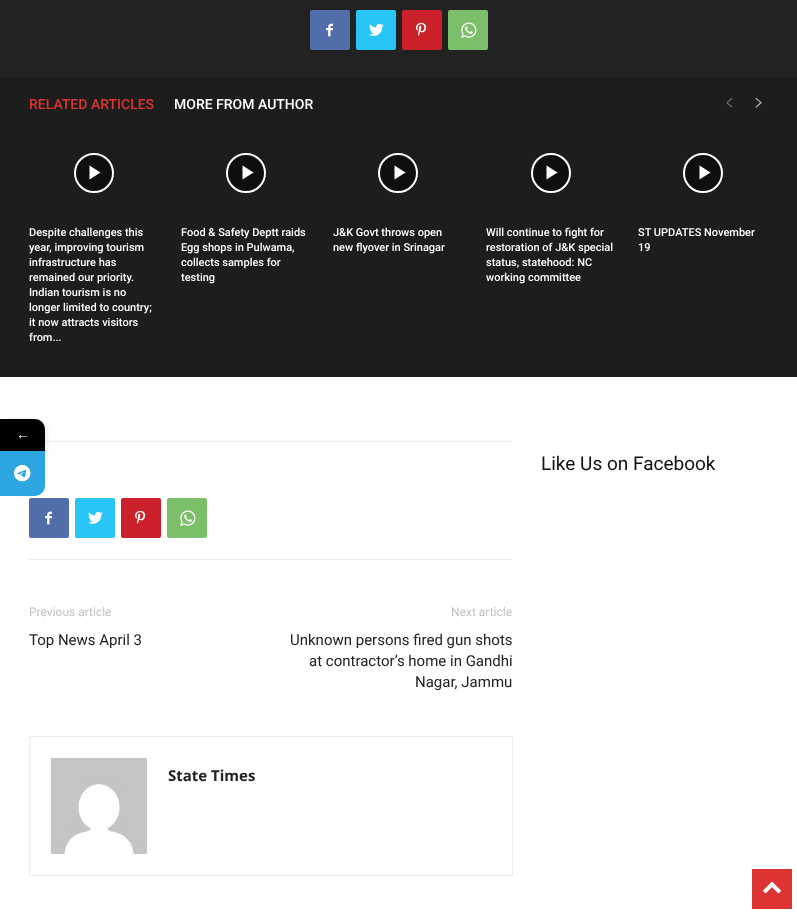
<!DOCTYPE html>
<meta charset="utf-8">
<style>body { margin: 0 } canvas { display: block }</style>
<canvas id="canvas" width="797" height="913"></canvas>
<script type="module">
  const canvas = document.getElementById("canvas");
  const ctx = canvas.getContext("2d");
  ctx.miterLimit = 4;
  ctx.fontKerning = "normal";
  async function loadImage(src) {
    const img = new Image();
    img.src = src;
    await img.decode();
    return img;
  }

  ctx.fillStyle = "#ffffff";
  ctx.fillRect(0, 0, 797, 913);
  ctx.fillStyle = "#ededed";
  ctx.fillRect(45, 441, 468, 1);
  ctx.fillStyle = "rgba(0, 0, 0, 0.16)";
  ctx.filter = "blur(3px)";
  ctx.beginPath();
  ctx.roundRect(0, 422, 45, 32, 10);
  ctx.fill();
  ctx.filter = "none";
  ctx.fillStyle = "#000000";
  ctx.beginPath();
  ctx.roundRect(0, 419, 45, 32, [0, 10, 0, 0]);
  ctx.fill();
  ctx.font = "14px Liberation Serif";
  ctx.fillStyle = "#ffffff";
  ctx.fillText("←", 16, 439);
  ctx.fillStyle = "#2ca5e0";
  ctx.beginPath();
  ctx.roundRect(0, 451, 45, 45, [0, 0, 10, 0]);
  ctx.fill();
  ctx.drawImage(await loadImage("img1.png"), 14, 464, 17, 18);
  ctx.fillStyle = "#222222";
  ctx.fillRect(0, 0, 797, 78);
  ctx.fillStyle = "#516eab";
  ctx.beginPath();
  ctx.roundRect(310, 10, 40, 40, 2);
  ctx.fill();
  ctx.drawImage(await loadImage("img2.png"), 326, 23, 7, 14);
  ctx.fillStyle = "#29c5f6";
  ctx.beginPath();
  ctx.roundRect(356, 10, 40, 40, 2);
  ctx.fill();
  ctx.drawImage(await loadImage("img3.png"), 369, 23, 15, 13);
  ctx.fillStyle = "#ca212a";
  ctx.beginPath();
  ctx.roundRect(402, 10, 40, 40, 2);
  ctx.fill();
  ctx.drawImage(await loadImage("img4.png"), 416, 22, 11, 14);
  ctx.fillStyle = "#7bbf6a";
  ctx.beginPath();
  ctx.roundRect(448, 10, 40, 40, 2);
  ctx.fill();
  ctx.drawImage(await loadImage("img5.png"), 461, 22, 16, 16);
  ctx.fillStyle = "#1d1d1d";
  ctx.fillRect(0, 78, 797, 299);
  ctx.font = "500 14px Roboto";
  ctx.fillStyle = "#dd3333";
  ctx.fillText("RELATED ARTICLES", 29, 109);
  ctx.fillStyle = "#ffffff";
  ctx.fillText("MORE FROM AUTHOR", 174, 109);
  ctx.drawImage(await loadImage("img6.png"), 726, 97, 7, 11);
  ctx.drawImage(await loadImage("img7.png"), 755, 97, 7, 11);
  ctx.fillStyle = "rgba(0, 0, 0, 0.48)";
  ctx.beginPath();
  ctx.arc(94, 173, 19, 0, Math.PI * 2);
  ctx.fill();
  ctx.strokeStyle = "#ffffff";
  ctx.lineWidth = 2;
  ctx.stroke();
  ctx.fillStyle = "#ffffff";
  ctx.beginPath();
  ctx.moveTo(89.5, 165.5);
  ctx.lineTo(89.5, 179.5);
  ctx.lineTo(100.5, 172.5);
  ctx.closePath();
  ctx.fill();
  ctx.font = "500 11px Roboto";
  ctx.fillText("Despite challenges this", 29, 236);
  ctx.fillText("year, improving tourism", 29, 251);
  ctx.fillText("infrastructure has", 29, 266);
  ctx.fillText("remained our priority.", 29, 281);
  ctx.fillText("Indian tourism is no", 29, 296);
  ctx.fillText("longer limited to country;", 29, 311);
  ctx.fillText("it now attracts visitors", 29, 326);
  ctx.fillText("from...", 29, 341);
  ctx.fillStyle = "rgba(0, 0, 0, 0.48)";
  ctx.beginPath();
  ctx.arc(246, 173, 19, 0, Math.PI * 2);
  ctx.fill();
  ctx.stroke();
  ctx.fillStyle = "#ffffff";
  ctx.beginPath();
  ctx.moveTo(242.5, 165.5);
  ctx.lineTo(242.5, 179.5);
  ctx.lineTo(253.5, 172.5);
  ctx.closePath();
  ctx.fill();
  ctx.fillText("Food & Safety Deptt raids", 181, 236);
  ctx.fillText("Egg shops in Pulwama,", 181, 251);
  ctx.fillText("collects samples for", 181, 266);
  ctx.fillText("testing", 181, 281);
  ctx.fillStyle = "rgba(0, 0, 0, 0.48)";
  ctx.beginPath();
  ctx.arc(398, 173, 19, 0, Math.PI * 2);
  ctx.fill();
  ctx.stroke();
  ctx.fillStyle = "#ffffff";
  ctx.beginPath();
  ctx.moveTo(394.5, 165.5);
  ctx.lineTo(394.5, 179.5);
  ctx.lineTo(405.5, 172.5);
  ctx.closePath();
  ctx.fill();
  ctx.fillText("J&K Govt throws open", 333, 236);
  ctx.fillText("new flyover in Srinagar", 333, 251);
  ctx.fillStyle = "rgba(0, 0, 0, 0.48)";
  ctx.beginPath();
  ctx.arc(551, 173, 19, 0, Math.PI * 2);
  ctx.fill();
  ctx.stroke();
  ctx.fillStyle = "#ffffff";
  ctx.beginPath();
  ctx.moveTo(546.5, 165.5);
  ctx.lineTo(546.5, 179.5);
  ctx.lineTo(557.5, 172.5);
  ctx.closePath();
  ctx.fill();
  ctx.fillText("Will continue to fight for", 486, 236);
  ctx.fillText("restoration of J&K special", 486, 251);
  ctx.fillText("status, statehood: NC", 486, 266);
  ctx.fillText("working committee", 486, 281);
  ctx.fillStyle = "rgba(0, 0, 0, 0.48)";
  ctx.beginPath();
  ctx.arc(703, 173, 19, 0, Math.PI * 2);
  ctx.fill();
  ctx.stroke();
  ctx.fillStyle = "#ffffff";
  ctx.beginPath();
  ctx.moveTo(699.5, 165.5);
  ctx.lineTo(699.5, 179.5);
  ctx.lineTo(710.5, 172.5);
  ctx.closePath();
  ctx.fill();
  ctx.fillText("ST UPDATES November", 638, 236);
  ctx.fillText("19", 638, 251);
  ctx.font = "19px Roboto";
  ctx.fillStyle = "#111111";
  ctx.fillText("Like Us on Facebook", 541, 470);
  ctx.fillStyle = "#ededed";
  ctx.fillRect(29, 559, 484, 1);
  ctx.fillStyle = "#516eab";
  ctx.beginPath();
  ctx.roundRect(29, 498, 40, 40, 2);
  ctx.fill();
  ctx.drawImage(await loadImage("img2.png"), 45, 511, 7, 14);
  ctx.fillStyle = "#29c5f6";
  ctx.beginPath();
  ctx.roundRect(75, 498, 40, 40, 2);
  ctx.fill();
  ctx.drawImage(await loadImage("img3.png"), 88, 511, 15, 13);
  ctx.fillStyle = "#ca212a";
  ctx.beginPath();
  ctx.roundRect(121, 498, 40, 40, 2);
  ctx.fill();
  ctx.drawImage(await loadImage("img4.png"), 135, 510, 11, 14);
  ctx.fillStyle = "#7bbf6a";
  ctx.beginPath();
  ctx.roundRect(167, 498, 40, 40, 2);
  ctx.fill();
  ctx.drawImage(await loadImage("img5.png"), 180, 510, 16, 16);
  ctx.font = "12px Roboto";
  ctx.fillStyle = "#c1c1c1";
  ctx.fillText("Previous article", 29, 616);
  ctx.font = "15px Roboto";
  ctx.fillStyle = "#222222";
  ctx.fillText("Top News April 3", 29, 645);
  ctx.font = "12px Roboto";
  ctx.fillStyle = "#c1c1c1";
  ctx.fillText("Next article", 451, 616);
  ctx.font = "15px Roboto";
  ctx.fillStyle = "#222222";
  ctx.fillText("Unknown persons fired gun shots", 290, 645);
  ctx.fillText("at contractor’s home in Gandhi", 309, 666);
  ctx.fillText("Nagar, Jammu", 415, 687);
  ctx.strokeStyle = "#ededed";
  ctx.lineWidth = 1;
  ctx.strokeRect(29.5, 736.5, 483, 139);
  ctx.drawImage(await loadImage("img8.png"), 51, 758, 96, 96);
  ctx.font = "bold 15px Open Sans";
  ctx.fillText("State Times", 168, 781);
  ctx.fillStyle = "#dd3333";
  ctx.fillRect(752, 869, 40, 40);
  ctx.drawImage(await loadImage("img9.png"), 763, 881, 18, 13);
</script>
